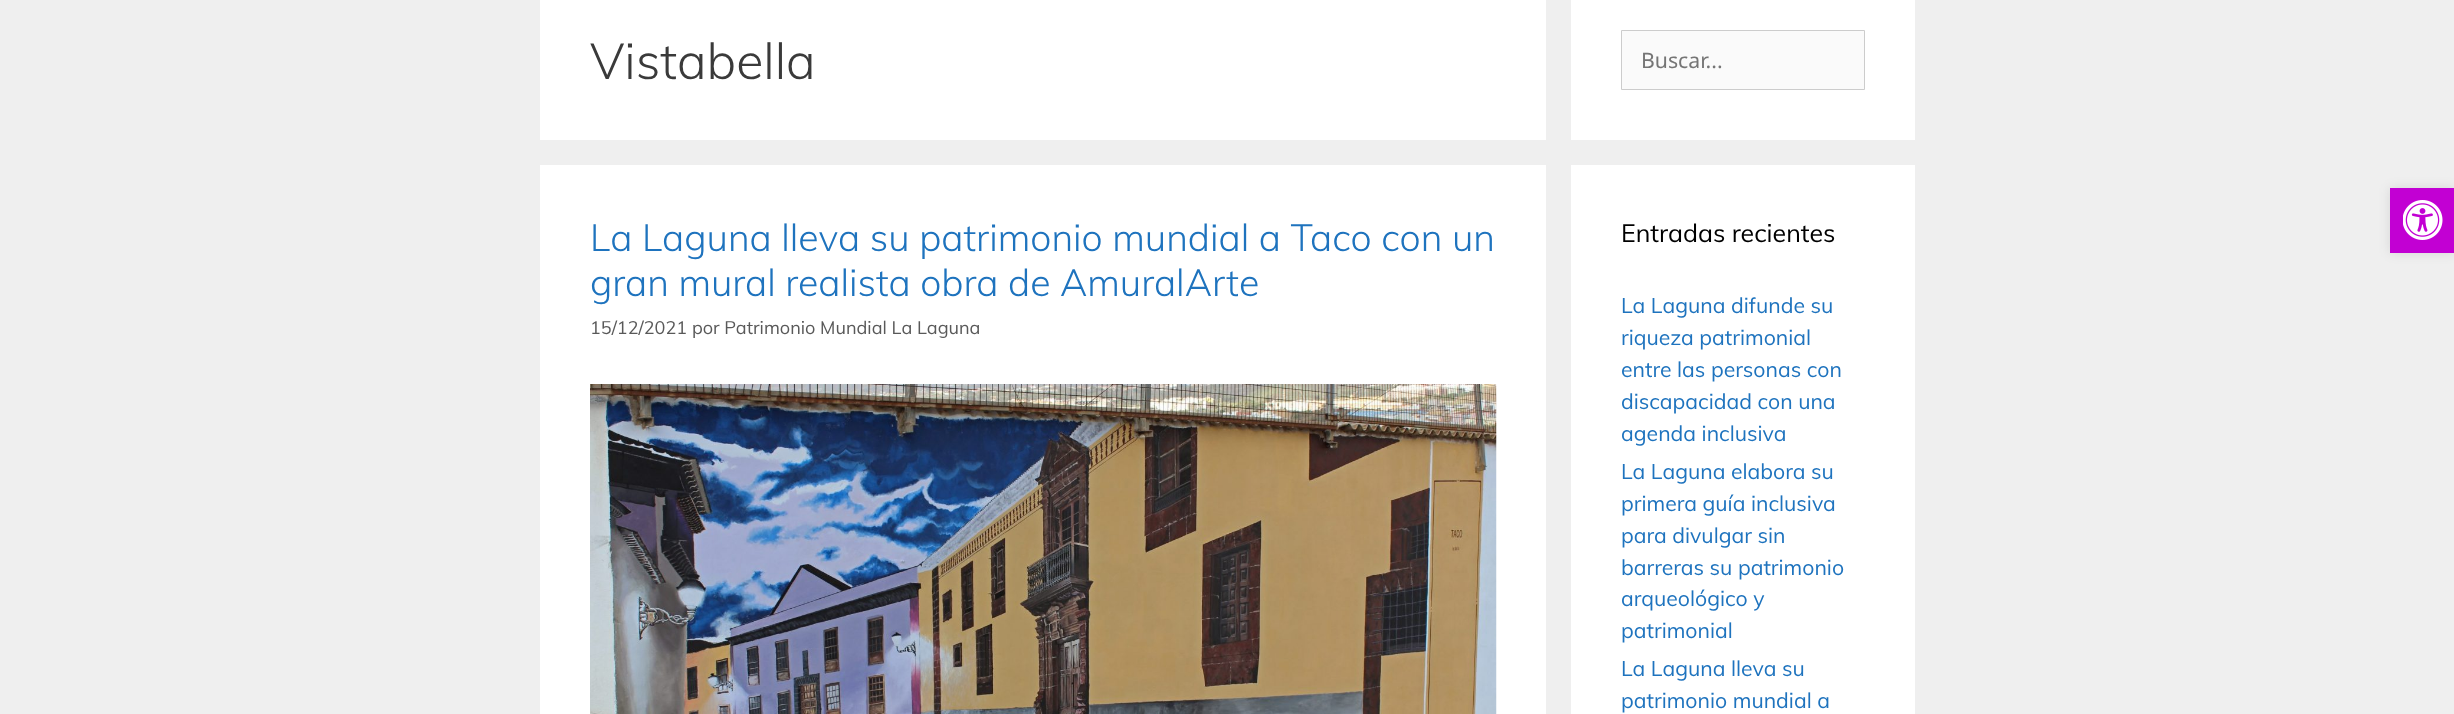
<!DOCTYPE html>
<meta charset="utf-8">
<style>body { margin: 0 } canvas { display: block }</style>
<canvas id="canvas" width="2454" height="714"></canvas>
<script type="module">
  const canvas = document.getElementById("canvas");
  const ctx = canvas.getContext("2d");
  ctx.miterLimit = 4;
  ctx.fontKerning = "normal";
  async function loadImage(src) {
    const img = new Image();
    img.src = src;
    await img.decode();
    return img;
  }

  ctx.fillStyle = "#efefef";
  ctx.fillRect(0, 0, 2454, 714);
  ctx.fillStyle = "#ffffff";
  ctx.fillRect(540, 0, 1006, 140);
  ctx.font = "300 50px Muli";
  ctx.fillStyle = "#3a3a3a";
  ctx.fillText("Vistabella", 590, 79);
  ctx.fillStyle = "#ffffff";
  ctx.fillRect(540, 165, 1006, 549);
  ctx.font = "300 37.5px Muli";
  ctx.fillStyle = "#1e73be";
  ctx.fillText("La Laguna lleva su patrimonio mundial a Taco con un", 590, 251);
  ctx.fillText("gran mural realista obra de AmuralArte", 590, 296);
  ctx.font = "18.1px Muli";
  ctx.fillStyle = "#595959";
  ctx.fillText("15/12/2021 por Patrimonio Mundial La Laguna", 590, 334);
  ctx.drawImage(await loadImage("img1.png"), 590, 384, 907, 330);
  ctx.fillStyle = "#ffffff";
  ctx.fillRect(1571, 0, 344, 140);
  ctx.fillStyle = "#fafafa";
  ctx.beginPath();
  ctx.rect(1621.5, 30.5, 243, 59);
  ctx.fill();
  ctx.strokeStyle = "#cccccc";
  ctx.stroke();
  ctx.font = "21.25px Noto Sans";
  ctx.fillStyle = "#757575";
  ctx.fillText("Buscar...", 1641, 68);
  ctx.fillStyle = "#ffffff";
  ctx.fillRect(1571, 165, 344, 549);
  ctx.font = "25px Muli";
  ctx.fillStyle = "#000000";
  ctx.fillText("Entradas recientes", 1621, 242);
  ctx.font = "21.25px Muli";
  ctx.fillStyle = "#1e73be";
  ctx.fillText("La Laguna difunde su", 1621, 313);
  ctx.fillText("riqueza patrimonial", 1621, 345);
  ctx.fillText("entre las personas con", 1621, 377);
  ctx.fillText("discapacidad con una", 1621, 409);
  ctx.fillText("agenda inclusiva", 1621, 441);
  ctx.fillText("La Laguna elabora su", 1621, 479);
  ctx.fillText("primera guía inclusiva", 1621, 511);
  ctx.fillText("para divulgar sin", 1621, 543);
  ctx.fillText("barreras su patrimonio", 1621, 575);
  ctx.fillText("arqueológico y", 1621, 606);
  ctx.fillText("patrimonial", 1621, 638);
  ctx.fillText("La Laguna lleva su", 1621, 676);
  ctx.fillText("patrimonio mundial a", 1621, 708);
  ctx.fillStyle = "rgba(0, 0, 0, 0.1)";
  ctx.filter = "blur(6px)";
  ctx.beginPath();
  ctx.rect(2390, 188, 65, 65);
  ctx.fill();
  ctx.filter = "none";
  ctx.fillStyle = "#c200d3";
  ctx.fillRect(2390, 188, 64, 65);
  ctx.drawImage(await loadImage("img2.png"), 2403, 200, 40, 40);
</script>
